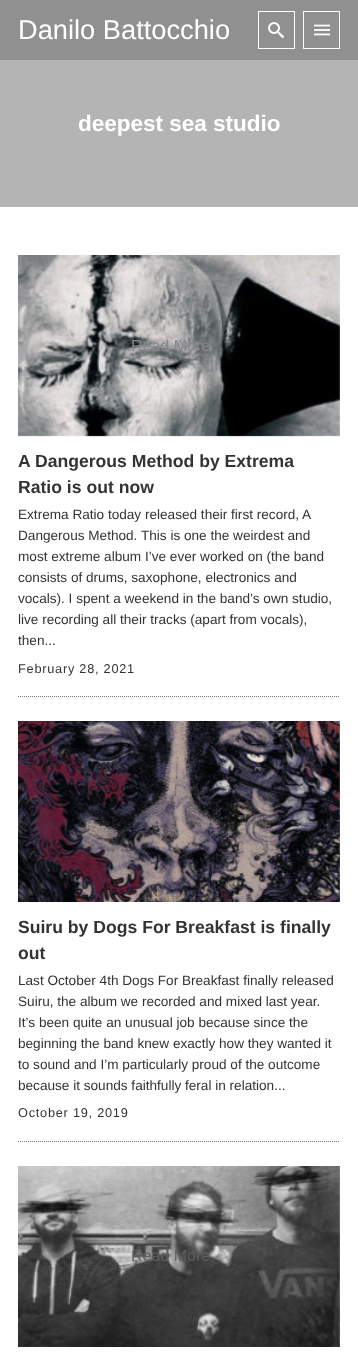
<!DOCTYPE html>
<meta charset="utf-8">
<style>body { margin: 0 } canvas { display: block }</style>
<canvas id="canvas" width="358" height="1353"></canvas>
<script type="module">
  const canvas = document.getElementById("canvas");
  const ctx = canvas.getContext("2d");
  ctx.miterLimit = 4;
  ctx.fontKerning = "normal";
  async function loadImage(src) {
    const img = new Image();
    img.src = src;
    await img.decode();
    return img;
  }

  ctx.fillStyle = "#ffffff";
  ctx.fillRect(0, 0, 358, 1353);
  ctx.fillStyle = "#909090";
  ctx.fillRect(0, 0, 358, 60);
  ctx.font = "27.25px Liberation Sans";
  ctx.fillStyle = "#ffffff";
  ctx.fillText("Danilo Battocchio", 18, 39);
  ctx.strokeStyle = "#ffffff";
  ctx.strokeRect(258.5, 11.5, 36, 37);
  ctx.drawImage(await loadImage("img1.png"), 268, 22, 16, 16);
  ctx.strokeRect(303.5, 11.5, 36, 37);
  ctx.drawImage(await loadImage("img2.png"), 314, 24, 16, 12);
  ctx.fillStyle = "#b4b4b4";
  ctx.fillRect(0, 60, 358, 147);
  ctx.font = "bold 22.5px Liberation Sans";
  ctx.fillStyle = "#ffffff";
  ctx.fillText("deepest sea studio", 78, 131);
  ctx.beginPath();
  ctx.moveTo(18, 696.5);
  ctx.lineTo(340, 696.5);
  ctx.strokeStyle = "#777777";
  ctx.setLineDash([1, 1]);
  ctx.stroke();
  ctx.drawImage(await loadImage("img3.png"), 18, 255, 322, 182);
  ctx.font = "16px Liberation Sans";
  ctx.fillStyle = "#85888a";
  ctx.fillText("Read More", 131, 351);
  ctx.font = "bold 17.6px Liberation Sans";
  ctx.fillStyle = "#333333";
  ctx.fillText("A Dangerous Method by Extrema", 18, 467);
  ctx.fillText("Ratio is out now", 18, 493);
  ctx.font = "13.6px Liberation Sans";
  ctx.fillText("Extrema Ratio today released their first record, A", 18, 519);
  ctx.fillText("Dangerous Method. This is one the weirdest and", 18, 540);
  ctx.fillText("most extreme album I’ve ever worked on (the band", 18, 561);
  ctx.fillText("consists of drums, saxophone, electronics and", 18, 582);
  ctx.fillText("vocals). I spent a weekend in the band’s own studio,", 18, 603);
  ctx.fillText("live recording all their tracks (apart from vocals),", 18, 624);
  ctx.fillText("then...", 18, 645);
  ctx.letterSpacing = "0.75px";
  ctx.font = "12.75px Liberation Sans";
  ctx.fillText("February 28, 2021", 18, 673);
  ctx.beginPath();
  ctx.moveTo(18, 1141.5);
  ctx.lineTo(340, 1141.5);
  ctx.stroke();
  ctx.drawImage(await loadImage("img4.png"), 18, 721, 322, 181);
  ctx.letterSpacing = "0px";
  ctx.font = "bold 17.6px Liberation Sans";
  ctx.fillText("Suiru by Dogs For Breakfast is finally", 18, 933);
  ctx.fillText("out", 18, 959);
  ctx.font = "13.6px Liberation Sans";
  ctx.fillText("Last October 4th Dogs For Breakfast finally released", 18, 985);
  ctx.fillText("Suiru, the album we recorded and mixed last year.", 18, 1006);
  ctx.fillText("It’s been quite an unusual job because since the", 18, 1027);
  ctx.fillText("beginning the band knew exactly how they wanted it", 18, 1048);
  ctx.fillText("to sound and I’m particularly proud of the outcome", 18, 1069);
  ctx.fillText("because it sounds faithfully feral in relation...", 18, 1090);
  ctx.letterSpacing = "0.75px";
  ctx.font = "12.75px Liberation Sans";
  ctx.fillText("October 19, 2019", 18, 1117);
  ctx.drawImage(await loadImage("img5.png"), 18, 1166, 322, 181);
  ctx.letterSpacing = "0px";
  ctx.font = "16px Liberation Sans";
  ctx.fillStyle = "#5f5f5f";
  ctx.fillText("Read More", 131, 1261);
</script>
